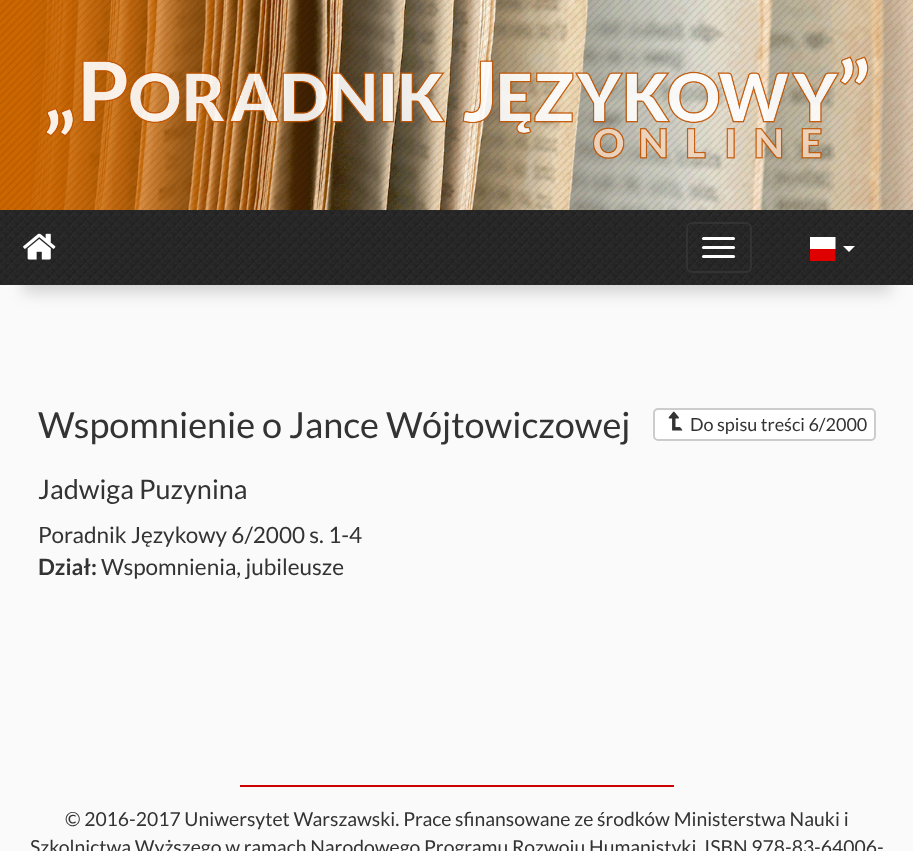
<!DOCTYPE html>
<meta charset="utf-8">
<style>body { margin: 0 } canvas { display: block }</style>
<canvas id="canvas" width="913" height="851"></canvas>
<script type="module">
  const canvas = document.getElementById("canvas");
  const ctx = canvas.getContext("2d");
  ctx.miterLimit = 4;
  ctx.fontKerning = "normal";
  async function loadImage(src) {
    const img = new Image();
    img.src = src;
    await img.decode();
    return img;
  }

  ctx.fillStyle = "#fafafa";
  ctx.fillRect(0, 0, 913, 851);
  ctx.fillStyle = "#cc6600";
  ctx.fillRect(0, 0, 453, 210);
  ctx.drawImage(await loadImage("img1.png"), 30, 0, 883, 210);
  ctx.drawImage(await loadImage("img2.png"), 0, 0, 913, 210);
  ctx.drawImage(await loadImage("img3.png"), 45, 56, 824, 103);
  ctx.fillStyle = "rgba(0, 0, 0, 0.15)";
  ctx.filter = "blur(7.5px)";
  ctx.beginPath();
  ctx.rect(23, 263, 868, 30);
  ctx.fill();
  ctx.filter = "none";
  ctx.drawImage(await loadImage("img4.png"), 0, 210, 913, 75);
  ctx.drawImage(await loadImage("img5.png"), 23, 233, 33, 27);
  ctx.beginPath();
  ctx.roundRect(687, 223, 64, 49, 5);
  ctx.strokeStyle = "#333333";
  ctx.lineWidth = 2;
  ctx.stroke();
  ctx.fillStyle = "#ffffff";
  ctx.beginPath();
  ctx.roundRect(702, 237, 33, 3, 1.5);
  ctx.fill();
  ctx.beginPath();
  ctx.roundRect(702, 246, 33, 3, 1.5);
  ctx.fill();
  ctx.beginPath();
  ctx.roundRect(702, 255, 33, 3, 1.5);
  ctx.fill();
  ctx.drawImage(await loadImage("img6.png"), 810, 237, 26, 24);
  ctx.beginPath();
  ctx.moveTo(843, 246);
  ctx.lineTo(855, 246);
  ctx.lineTo(849, 252);
  ctx.closePath();
  ctx.fill();
  ctx.font = "36px Lato";
  ctx.fillStyle = "#333333";
  ctx.fillText("Wspomnienie o Jance Wójtowiczowej", 38, 438);
  ctx.fillStyle = "#ffffff";
  ctx.beginPath();
  ctx.roundRect(654, 409, 221, 31, 4);
  ctx.fill();
  ctx.strokeStyle = "#cccccc";
  ctx.stroke();
  ctx.drawImage(await loadImage("img7.png"), 668, 411, 15, 20);
  ctx.font = "18px Lato";
  ctx.fillStyle = "#333333";
  ctx.fillText("Do spisu treści 6/2000", 690, 431);
  ctx.font = "27px Lato";
  ctx.fillText("Jadwiga Puzynina", 38, 499);
  ctx.font = "22.5px Lato";
  ctx.fillText("Poradnik Językowy 6/2000 s. 1-4", 38, 543);
  ctx.font = "bold 22.5px Lato";
  ctx.fillText("Dział:", 38, 575);
  ctx.font = "22.5px Lato";
  ctx.fillText("Wspomnienia, jubileusze", 101, 575);
  ctx.fillStyle = "#cc0000";
  ctx.fillRect(240, 785, 434, 2);
  ctx.font = "19.35px Lato";
  ctx.fillStyle = "#333333";
  ctx.fillText("© 2016-2017 Uniwersytet Warszawski. Prace sfinansowane ze środków Ministerstwa Nauki i", 65, 826);
  ctx.fillText("Szkolnictwa Wyższego w ramach Narodowego Programu Rozwoju Humanistyki. ISBN 978-83-64006-", 30, 854);
</script>
